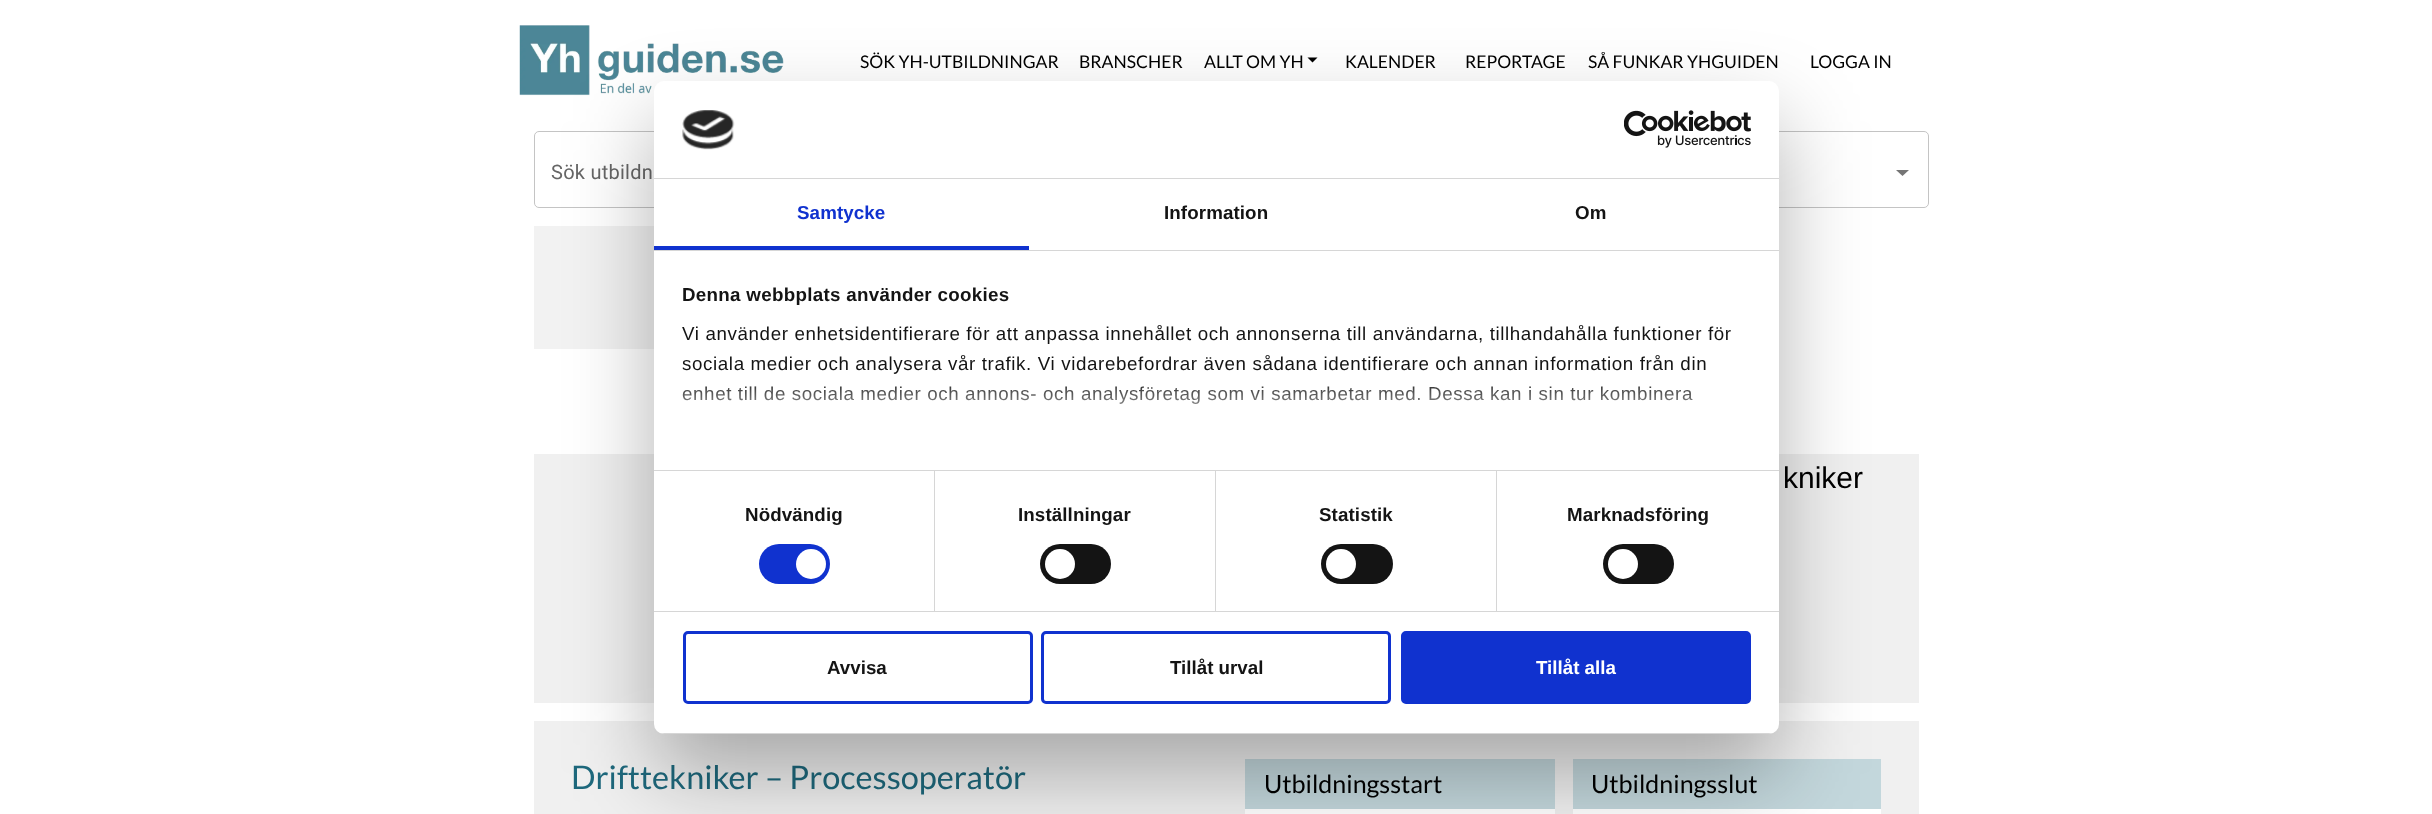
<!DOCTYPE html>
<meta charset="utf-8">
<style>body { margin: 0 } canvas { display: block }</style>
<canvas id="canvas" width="2432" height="814"></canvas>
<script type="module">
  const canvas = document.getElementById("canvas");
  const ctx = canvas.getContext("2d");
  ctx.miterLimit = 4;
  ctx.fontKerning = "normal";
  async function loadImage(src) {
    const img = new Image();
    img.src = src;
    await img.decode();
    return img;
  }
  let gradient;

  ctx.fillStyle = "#ffffff";
  ctx.fillRect(0, 0, 2432, 814);
  ctx.drawImage(await loadImage("img1.png"), 519, 25, 265, 71);
  ctx.font = "17.5px Lato";
  ctx.fillStyle = "#000000";
  ctx.fillText("SÖK YH-UTBILDNINGAR", 860, 68);
  ctx.fillText("BRANSCHER", 1079, 68);
  ctx.fillText("ALLT OM YH", 1204, 68);
  ctx.beginPath();
  ctx.moveTo(1307.5, 57.5);
  ctx.lineTo(1317.5, 57.5);
  ctx.lineTo(1312.5, 62.5);
  ctx.closePath();
  ctx.fill();
  ctx.fillText("KALENDER", 1345, 68);
  ctx.fillText("REPORTAGE", 1465, 68);
  ctx.fillText("SÅ FUNKAR YHGUIDEN", 1588, 68);
  ctx.fillText("LOGGA IN", 1810, 68);
  ctx.fillStyle = "#757575";
  ctx.beginPath();
  ctx.moveTo(1896, 170);
  ctx.lineTo(1902.5, 176);
  ctx.lineTo(1909, 170);
  ctx.closePath();
  ctx.fill();
  ctx.beginPath();
  ctx.roundRect(534.5, 131.5, 1394, 76, 4.5);
  ctx.strokeStyle = "#c4c4c4";
  ctx.stroke();
  ctx.letterSpacing = "0.25px";
  ctx.font = "20px Roboto";
  ctx.fillStyle = "#666666";
  ctx.fillText("Sök utbildn", 551, 179);
  ctx.fillStyle = "#f2f2f2";
  ctx.fillRect(534, 226, 120, 123);
  ctx.fillStyle = "#f0f0f0";
  ctx.fillRect(534, 454, 1385, 249);
  ctx.letterSpacing = "0px";
  ctx.wordSpacing = "1px";
  ctx.font = "30px Liberation Sans";
  ctx.fillStyle = "#000000";
  ctx.fillText("kniker", 1783, 488);
  ctx.fillStyle = "#f0f0f0";
  ctx.fillRect(534, 721, 1385, 93);
  ctx.wordSpacing = "0px";
  ctx.font = "32.5px Lato";
  ctx.fillStyle = "#1e697d";
  ctx.fillText("Drifttekniker – Processoperatör", 571, 789);
  ctx.fillStyle = "#c3d7dc";
  ctx.fillRect(1245, 759, 310, 50);
  ctx.font = "25px Lato";
  ctx.fillStyle = "#000000";
  ctx.fillText("Utbildningsstart", 1264, 793);
  ctx.fillStyle = "#ffffff";
  ctx.fillRect(1245, 809, 310, 5);
  ctx.fillStyle = "#c3d7dc";
  ctx.fillRect(1573, 759, 308, 50);
  ctx.fillStyle = "#000000";
  ctx.fillText("Utbildningsslut", 1591, 793);
  ctx.fillStyle = "#ffffff";
  ctx.fillRect(1573, 809, 308, 5);
  ctx.fillStyle = "rgba(0, 0, 0, 0.3)";
  ctx.filter = "blur(42.5px)";
  ctx.beginPath();
  ctx.roundRect(654, 121, 1125, 653, 10);
  ctx.fill();
  ctx.filter = "none";
  ctx.fillStyle = "#ffffff";
  ctx.beginPath();
  ctx.roundRect(654, 81, 1125, 653, 10);
  ctx.fill();
  ctx.fillStyle = "#d6d6d6";
  ctx.fillRect(654, 178, 1125, 1);
  ctx.drawImage(await loadImage("img2.png"), 682, 110, 53, 40);
  ctx.drawImage(await loadImage("img3.png"), 1624, 110, 127, 38);
  ctx.fillRect(654, 250, 1125, 1);
  ctx.fillStyle = "#1032cf";
  ctx.fillRect(654, 246, 375, 4);
  ctx.letterSpacing = "0.1px";
  ctx.font = "bold 18.75px Liberation Sans";
  ctx.fillText("Samtycke", 797, 219);
  ctx.fillStyle = "#141414";
  ctx.fillText("Information", 1164, 219);
  ctx.fillText("Om", 1575, 219);
  ctx.fillStyle = "#d6d6d6";
  ctx.fillRect(654, 470, 1125, 1);
  ctx.letterSpacing = "0.3px";
  ctx.fillStyle = "#141414";
  ctx.fillText("Denna webbplats använder cookies", 682, 301);
  ctx.letterSpacing = "0.62px";
  ctx.font = "18.75px Liberation Sans";
  ctx.fillText("Vi använder enhetsidentifierare för att anpassa innehållet och annonserna till användarna, tillhandahålla funktioner för", 682, 340);
  ctx.fillText("sociala medier och analysera vår trafik. Vi vidarebefordrar även sådana identifierare och annan information från din", 682, 370);
  ctx.fillText("enhet till de sociala medier och annons- och analysföretag som vi samarbetar med. Dessa kan i sin tur kombinera", 682, 400);
  gradient = ctx.createLinearGradient(1204, 470, 1204, 377);
  gradient.addColorStop(0, "#ffffff");
  gradient.addColorStop(0.5, "rgba(255, 255, 255, 0.8)");
  gradient.addColorStop(1, "rgba(255, 255, 255, 0)");
  ctx.fillStyle = gradient;
  ctx.fillRect(682, 386, 1011, 18);
  ctx.fillStyle = "#d6d6d6";
  ctx.fillRect(654, 611, 1125, 1);
  ctx.fillRect(934, 471, 1, 140);
  ctx.letterSpacing = "0.1px";
  ctx.font = "bold 18.75px Liberation Sans";
  ctx.fillStyle = "#141414";
  ctx.fillText("Nödvändig", 745, 521);
  ctx.fillStyle = "#1032cf";
  ctx.beginPath();
  ctx.roundRect(759, 544, 71, 40, 20);
  ctx.fill();
  ctx.fillStyle = "#ffffff";
  ctx.beginPath();
  ctx.arc(811, 564, 15, 0, Math.PI * 2);
  ctx.fill();
  ctx.fillStyle = "#d6d6d6";
  ctx.fillRect(1215, 471, 1, 140);
  ctx.fillStyle = "#141414";
  ctx.fillText("Inställningar", 1018, 521);
  ctx.beginPath();
  ctx.roundRect(1040, 544, 71, 40, 20);
  ctx.fill();
  ctx.fillStyle = "#ffffff";
  ctx.beginPath();
  ctx.arc(1060, 564, 15, 0, Math.PI * 2);
  ctx.fill();
  ctx.fillStyle = "#d6d6d6";
  ctx.fillRect(1496, 471, 1, 140);
  ctx.fillStyle = "#141414";
  ctx.fillText("Statistik", 1319, 521);
  ctx.beginPath();
  ctx.roundRect(1321, 544, 72, 40, 20);
  ctx.fill();
  ctx.fillStyle = "#ffffff";
  ctx.beginPath();
  ctx.arc(1341, 564, 15, 0, Math.PI * 2);
  ctx.fill();
  ctx.fillStyle = "#141414";
  ctx.fillText("Marknadsföring", 1567, 521);
  ctx.beginPath();
  ctx.roundRect(1603, 544, 71, 40, 20);
  ctx.fill();
  ctx.fillStyle = "#ffffff";
  ctx.beginPath();
  ctx.arc(1623, 564, 15, 0, Math.PI * 2);
  ctx.fill();
  ctx.save();
  ctx.beginPath();
  ctx.roundRect(654, 81, 1125, 653, 10);
  ctx.clip();
  ctx.fillStyle = "#d6d6d6";
  ctx.fillRect(654, 733, 1125, 1);
  ctx.restore();
  ctx.beginPath();
  ctx.roundRect(684.5, 632.5, 347, 70, 3.5);
  ctx.strokeStyle = "#1032cf";
  ctx.lineWidth = 3;
  ctx.stroke();
  ctx.letterSpacing = "0px";
  ctx.fillStyle = "#141414";
  ctx.fillText("Avvisa", 827, 674);
  ctx.beginPath();
  ctx.roundRect(1042.5, 632.5, 347, 70, 3.5);
  ctx.stroke();
  ctx.fillText("Tillåt urval", 1170, 674);
  ctx.fillStyle = "#1032cf";
  ctx.beginPath();
  ctx.roundRect(1402.5, 632.5, 347, 70, 3.5);
  ctx.fill();
  ctx.stroke();
  ctx.fillStyle = "#ffffff";
  ctx.fillText("Tillåt alla", 1536, 674);
</script>
